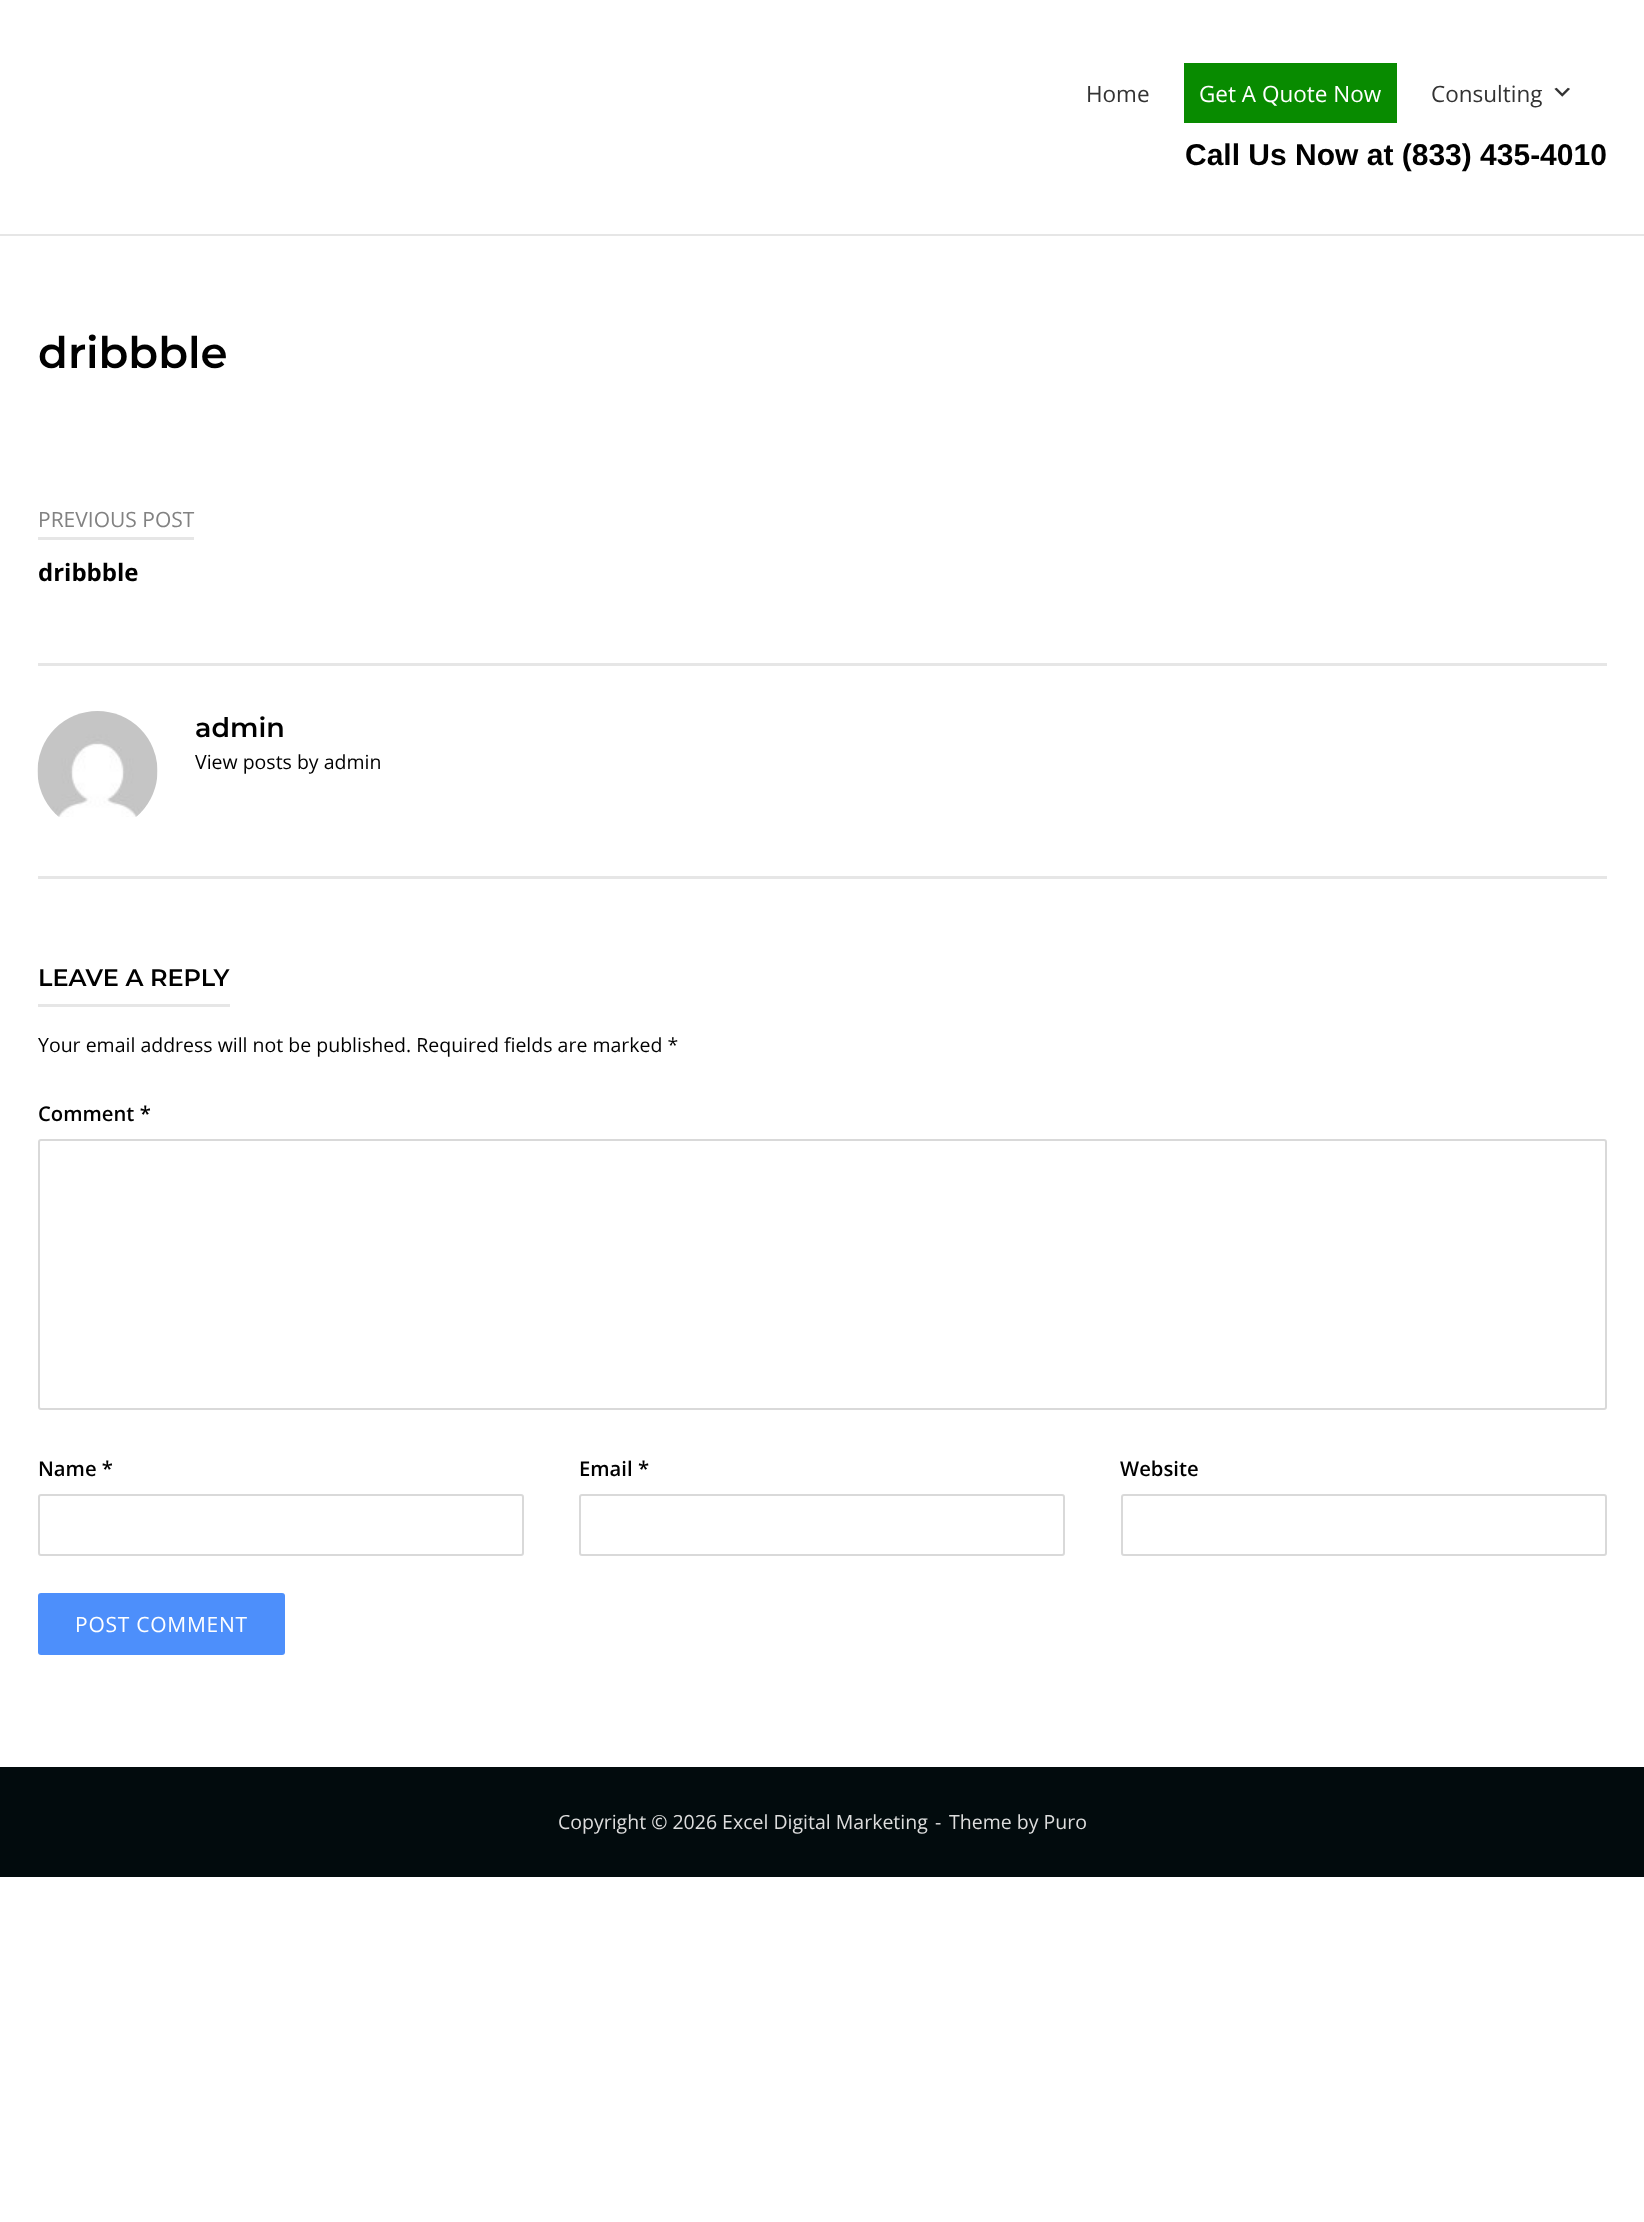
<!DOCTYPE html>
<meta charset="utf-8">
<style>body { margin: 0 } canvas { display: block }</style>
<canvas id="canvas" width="1644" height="2222"></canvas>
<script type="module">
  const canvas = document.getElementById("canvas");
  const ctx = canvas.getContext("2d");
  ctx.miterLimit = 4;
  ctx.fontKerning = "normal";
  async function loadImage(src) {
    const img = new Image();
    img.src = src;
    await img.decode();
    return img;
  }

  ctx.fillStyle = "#ffffff";
  ctx.fillRect(0, 0, 1644, 2222);
  ctx.fillStyle = "#e6e6e6";
  ctx.fillRect(0, 234, 1644, 2);
  ctx.font = "22.5px Open Sans";
  ctx.fillStyle = "#333333";
  ctx.fillText("Home", 1086, 102);
  ctx.fillStyle = "#088b00";
  ctx.fillRect(1184, 63, 213, 60);
  ctx.fillStyle = "#ffffff";
  ctx.fillText("Get A Quote Now", 1199, 102);
  ctx.fillStyle = "#333333";
  ctx.fillText("Consulting", 1431, 102);
  ctx.drawImage(await loadImage("img1.png"), 1554, 87, 16, 10);
  ctx.font = "bold 30px Liberation Sans";
  ctx.fillStyle = "#000000";
  ctx.fillText("Call Us Now at (833) 435-4010", 1185, 165);
  ctx.font = "600 43.5px Montserrat";
  ctx.fillText("dribbble", 38, 368);
  ctx.fillStyle = "#e6e6e6";
  ctx.fillRect(38, 537, 156, 3);
  ctx.font = "21px Open Sans";
  ctx.fillStyle = "#828282";
  ctx.fillText("PREVIOUS POST", 38, 527);
  ctx.font = "bold 24px Open Sans";
  ctx.fillStyle = "#000000";
  ctx.fillText("dribbble", 38, 581);
  ctx.fillStyle = "#e6e6e6";
  ctx.fillRect(38, 663, 1569, 3);
  ctx.fillRect(38, 876, 1569, 3);
  ctx.drawImage(await loadImage("img2.png"), 37, 711, 121, 106);
  ctx.font = "600 27px Montserrat";
  ctx.fillStyle = "#000000";
  ctx.fillText("admin", 195, 737);
  ctx.font = "19.5px Open Sans";
  ctx.fillText("View posts by admin", 195, 769);
  ctx.fillStyle = "#e6e6e6";
  ctx.fillRect(38, 1004, 192, 3);
  ctx.font = "600 24px Montserrat";
  ctx.fillStyle = "#000000";
  ctx.fillText("LEAVE A REPLY", 38, 986);
  ctx.font = "19.5px Open Sans";
  ctx.fillText("Your email address will not be published. Required fields are marked *", 38, 1052);
  ctx.font = "600 20.25px Open Sans";
  ctx.fillText("Comment *", 38, 1121);
  ctx.beginPath();
  ctx.roundRect(39, 1140, 1567, 269, 2);
  ctx.strokeStyle = "#d9d9d9";
  ctx.lineWidth = 2;
  ctx.stroke();
  ctx.fillText("Name *", 38, 1476);
  ctx.beginPath();
  ctx.roundRect(39, 1495, 484, 60, 2);
  ctx.stroke();
  ctx.fillText("Email *", 579, 1476);
  ctx.beginPath();
  ctx.roundRect(580, 1495, 484, 60, 2);
  ctx.stroke();
  ctx.fillText("Website", 1120, 1476);
  ctx.beginPath();
  ctx.roundRect(1122, 1495, 484, 60, 2);
  ctx.stroke();
  ctx.fillStyle = "#4d8ffb";
  ctx.beginPath();
  ctx.roundRect(38, 1593, 247, 62, 3);
  ctx.fill();
  ctx.letterSpacing = "0.75px";
  ctx.font = "21px Open Sans";
  ctx.fillStyle = "#ffffff";
  ctx.fillText("POST COMMENT", 75, 1632);
  ctx.fillStyle = "#020b0d";
  ctx.fillRect(0, 1767, 1644, 110);
  ctx.letterSpacing = "0px";
  ctx.font = "19.5px Open Sans";
  ctx.fillStyle = "#dddddd";
  ctx.fillText("Copyright © 2026 Excel Digital Marketing", 558, 1829);
  ctx.fillText("-", 935, 1829);
  ctx.fillText("Theme by Puro", 949, 1829);
</script>
